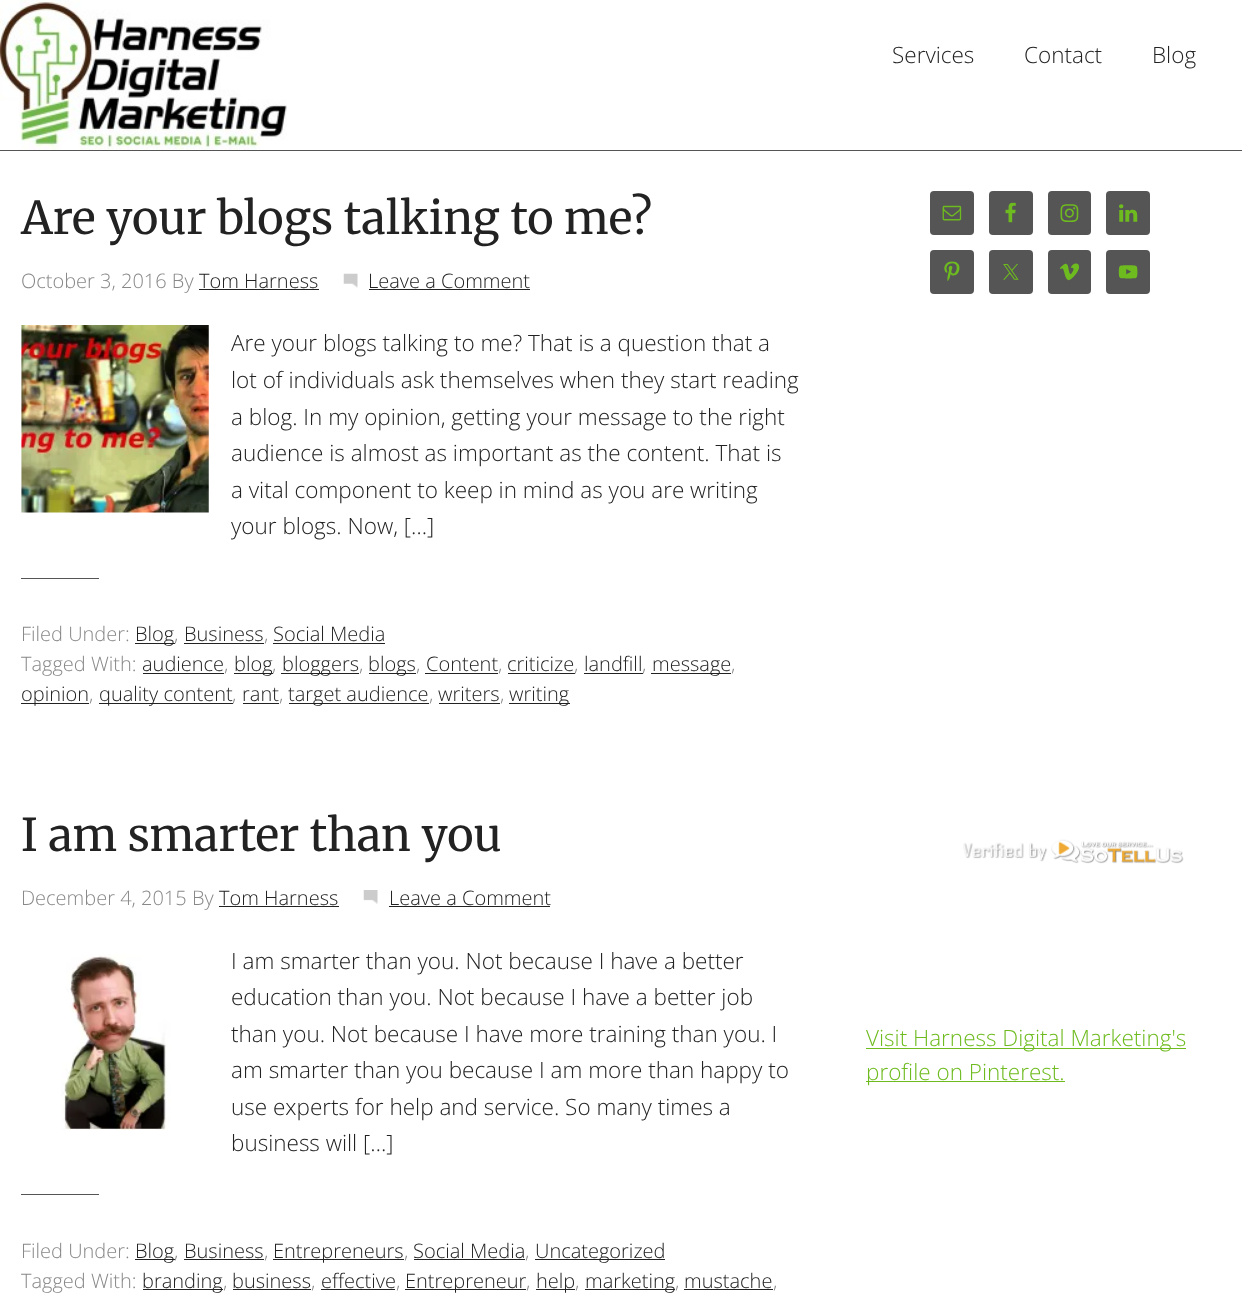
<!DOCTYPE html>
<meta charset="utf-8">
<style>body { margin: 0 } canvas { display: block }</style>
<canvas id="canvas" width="1242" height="1309"></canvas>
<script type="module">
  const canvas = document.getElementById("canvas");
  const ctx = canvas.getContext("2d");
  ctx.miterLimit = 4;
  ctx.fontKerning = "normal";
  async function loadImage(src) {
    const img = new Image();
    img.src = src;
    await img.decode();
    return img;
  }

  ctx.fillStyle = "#ffffff";
  ctx.fillRect(0, 0, 1242, 1309);
  ctx.drawImage(await loadImage("img1.png"), 0, 0, 287, 150);
  ctx.fillStyle = "#555555";
  ctx.fillRect(0, 150, 1242, 1);
  ctx.font = "300 22.5px Open Sans";
  ctx.fillStyle = "#222222";
  ctx.fillText("Services", 892, 63);
  ctx.fillText("Contact", 1024, 63);
  ctx.fillText("Blog", 1152, 63);
  ctx.font = "45px Merriweather";
  ctx.fillText("Are your blogs talking to me?", 21, 234);
  ctx.font = "300 20px Open Sans";
  ctx.fillStyle = "#888888";
  ctx.fillText("October 3, 2016 By", 21, 288);
  ctx.fillStyle = "#222222";
  ctx.fillText("Tom Harness", 199, 288);
  ctx.fillRect(199, 289, 120, 1);
  ctx.drawImage(await loadImage("img2.png"), 343, 273, 15, 15);
  ctx.fillText("Leave a Comment", 368, 288);
  ctx.fillRect(369, 289, 161, 1);
  ctx.drawImage(await loadImage("img3.png"), 21, 325, 188, 188);
  ctx.font = "300 22.5px Open Sans";
  ctx.fillText("Are your blogs talking to me? That is a question that a", 231, 351);
  ctx.fillText("lot of individuals ask themselves when they start reading", 231, 388);
  ctx.fillText("a blog. In my opinion, getting your message to the right", 231, 425);
  ctx.fillText("audience is almost as important as the content. That is", 231, 461);
  ctx.fillText("a vital component to keep in mind as you are writing", 231, 498);
  ctx.fillText("your blogs. Now, […]", 231, 534);
  ctx.fillStyle = "#555555";
  ctx.fillRect(21, 578, 78, 1);
  ctx.font = "300 20px Open Sans";
  ctx.fillStyle = "#888888";
  ctx.fillText("Filed Under:", 21, 641);
  ctx.fillStyle = "#222222";
  ctx.fillRect(135, 643, 40, 1);
  ctx.fillText("Blog", 135, 641);
  ctx.fillStyle = "#888888";
  ctx.fillText(",", 174, 641);
  ctx.fillStyle = "#222222";
  ctx.fillText("Business", 184, 641);
  ctx.fillRect(184, 643, 80, 1);
  ctx.fillStyle = "#888888";
  ctx.fillText(",", 264, 641);
  ctx.fillStyle = "#222222";
  ctx.fillText("Social Media", 273, 641);
  ctx.fillRect(273, 643, 112, 1);
  ctx.fillStyle = "#888888";
  ctx.fillText("Tagged With:", 21, 671);
  ctx.fillStyle = "#222222";
  ctx.fillText("audience", 142, 671);
  ctx.fillRect(143, 673, 81, 1);
  ctx.fillStyle = "#888888";
  ctx.fillText(",", 224, 671);
  ctx.fillStyle = "#222222";
  ctx.fillRect(234, 673, 39, 1);
  ctx.fillText("blog", 234, 671);
  ctx.fillStyle = "#888888";
  ctx.fillText(",", 272, 671);
  ctx.fillStyle = "#222222";
  ctx.fillRect(281, 673, 78, 1);
  ctx.fillText("bloggers", 282, 671);
  ctx.fillStyle = "#888888";
  ctx.fillText(",", 359, 671);
  ctx.fillStyle = "#222222";
  ctx.fillRect(369, 673, 47, 1);
  ctx.fillText("blogs", 368, 671);
  ctx.fillStyle = "#888888";
  ctx.fillText(",", 416, 671);
  ctx.fillStyle = "#222222";
  ctx.fillText("Content", 426, 671);
  ctx.fillRect(425, 673, 73, 1);
  ctx.fillStyle = "#888888";
  ctx.fillText(",", 498, 671);
  ctx.fillStyle = "#222222";
  ctx.fillText("criticize", 507, 671);
  ctx.fillRect(508, 673, 67, 1);
  ctx.fillStyle = "#888888";
  ctx.fillText(",", 574, 671);
  ctx.fillStyle = "#222222";
  ctx.fillText("landfill", 584, 671);
  ctx.fillRect(584, 673, 59, 1);
  ctx.fillStyle = "#888888";
  ctx.fillText(",", 642, 671);
  ctx.fillStyle = "#222222";
  ctx.fillRect(651, 673, 80, 1);
  ctx.fillText("message", 652, 671);
  ctx.fillStyle = "#888888";
  ctx.fillText(",", 731, 671);
  ctx.fillStyle = "#222222";
  ctx.fillRect(21, 703, 68, 1);
  ctx.fillText("opinion", 21, 701);
  ctx.fillStyle = "#888888";
  ctx.fillText(",", 89, 701);
  ctx.fillStyle = "#222222";
  ctx.fillRect(99, 703, 134, 1);
  ctx.fillText("quality content", 99, 701);
  ctx.fillStyle = "#888888";
  ctx.fillText(",", 232, 701);
  ctx.fillStyle = "#222222";
  ctx.fillText("rant", 242, 701);
  ctx.fillRect(243, 703, 36, 1);
  ctx.fillStyle = "#888888";
  ctx.fillText(",", 279, 701);
  ctx.fillStyle = "#222222";
  ctx.fillRect(289, 703, 140, 1);
  ctx.fillText("target audience", 288, 701);
  ctx.fillStyle = "#888888";
  ctx.fillText(",", 429, 701);
  ctx.fillStyle = "#222222";
  ctx.fillText("writers", 438, 701);
  ctx.fillRect(439, 703, 61, 1);
  ctx.fillStyle = "#888888";
  ctx.fillText(",", 500, 701);
  ctx.fillStyle = "#222222";
  ctx.fillRect(509, 703, 61, 1);
  ctx.fillText("writing", 509, 701);
  ctx.font = "45px Merriweather";
  ctx.fillText("I am smarter than you", 21, 851);
  ctx.font = "300 20px Open Sans";
  ctx.fillStyle = "#888888";
  ctx.fillText("December 4, 2015 By", 21, 905);
  ctx.fillStyle = "#222222";
  ctx.fillText("Tom Harness", 219, 905);
  ctx.fillRect(219, 906, 120, 1);
  ctx.drawImage(await loadImage("img4.png"), 363, 890, 15, 14);
  ctx.fillText("Leave a Comment", 389, 905);
  ctx.fillRect(389, 906, 161, 1);
  ctx.drawImage(await loadImage("img5.png"), 61, 954, 110, 176);
  ctx.font = "300 22.5px Open Sans";
  ctx.fillText("I am smarter than you. Not because I have a better", 231, 969);
  ctx.fillText("education than you. Not because I have a better job", 231, 1005);
  ctx.fillText("than you. Not because I have more training than you. I", 231, 1042);
  ctx.fillText("am smarter than you because I am more than happy to", 231, 1078);
  ctx.fillText("use experts for help and service. So many times a", 231, 1115);
  ctx.fillText("business will […]", 231, 1151);
  ctx.fillStyle = "#555555";
  ctx.fillRect(21, 1194, 78, 1);
  ctx.font = "300 20px Open Sans";
  ctx.fillStyle = "#888888";
  ctx.fillText("Filed Under:", 21, 1258);
  ctx.fillStyle = "#222222";
  ctx.fillRect(135, 1259, 40, 1);
  ctx.fillText("Blog", 135, 1258);
  ctx.fillStyle = "#888888";
  ctx.fillText(",", 174, 1258);
  ctx.fillStyle = "#222222";
  ctx.fillText("Business", 184, 1258);
  ctx.fillRect(184, 1259, 80, 1);
  ctx.fillStyle = "#888888";
  ctx.fillText(",", 264, 1258);
  ctx.fillStyle = "#222222";
  ctx.fillRect(273, 1259, 131, 1);
  ctx.fillText("Entrepreneurs", 273, 1258);
  ctx.fillStyle = "#888888";
  ctx.fillText(",", 404, 1258);
  ctx.fillStyle = "#222222";
  ctx.fillText("Social Media", 413, 1258);
  ctx.fillRect(414, 1259, 111, 1);
  ctx.fillStyle = "#888888";
  ctx.fillText(",", 525, 1258);
  ctx.fillStyle = "#222222";
  ctx.fillRect(535, 1259, 130, 1);
  ctx.fillText("Uncategorized", 535, 1258);
  ctx.fillStyle = "#888888";
  ctx.fillText("Tagged With:", 21, 1288);
  ctx.fillStyle = "#222222";
  ctx.fillRect(143, 1289, 80, 1);
  ctx.fillText("branding", 142, 1288);
  ctx.fillStyle = "#888888";
  ctx.fillText(",", 223, 1288);
  ctx.fillStyle = "#222222";
  ctx.fillText("business", 232, 1288);
  ctx.fillRect(233, 1289, 78, 1);
  ctx.fillStyle = "#888888";
  ctx.fillText(",", 311, 1288);
  ctx.fillStyle = "#222222";
  ctx.fillText("effective", 321, 1288);
  ctx.fillRect(321, 1289, 74, 1);
  ctx.fillStyle = "#888888";
  ctx.fillText(",", 396, 1288);
  ctx.fillStyle = "#222222";
  ctx.fillRect(405, 1289, 121, 1);
  ctx.fillText("Entrepreneur", 405, 1288);
  ctx.fillStyle = "#888888";
  ctx.fillText(",", 526, 1288);
  ctx.fillStyle = "#222222";
  ctx.fillRect(536, 1289, 39, 1);
  ctx.fillText("help", 536, 1288);
  ctx.fillStyle = "#888888";
  ctx.fillText(",", 575, 1288);
  ctx.fillStyle = "#222222";
  ctx.fillRect(585, 1289, 90, 1);
  ctx.fillText("marketing", 585, 1288);
  ctx.fillStyle = "#888888";
  ctx.fillText(",", 675, 1288);
  ctx.fillStyle = "#222222";
  ctx.fillText("mustache", 684, 1288);
  ctx.fillRect(684, 1289, 89, 1);
  ctx.fillStyle = "#888888";
  ctx.fillText(",", 773, 1288);
  ctx.fillStyle = "#555555";
  ctx.beginPath();
  ctx.roundRect(930, 191, 44, 44, 4);
  ctx.fill();
  ctx.drawImage(await loadImage("img6.png"), 942, 205, 20, 16);
  ctx.beginPath();
  ctx.roundRect(989, 191, 44, 44, 4);
  ctx.fill();
  ctx.drawImage(await loadImage("img7.png"), 1005, 202, 11, 21);
  ctx.beginPath();
  ctx.roundRect(1048, 191, 43, 44, 4);
  ctx.fill();
  ctx.drawImage(await loadImage("img8.png"), 1060, 204, 19, 18);
  ctx.beginPath();
  ctx.roundRect(1106, 191, 44, 44, 4);
  ctx.fill();
  ctx.drawImage(await loadImage("img9.png"), 1119, 204, 19, 18);
  ctx.beginPath();
  ctx.roundRect(930, 250, 44, 44, 4);
  ctx.fill();
  ctx.drawImage(await loadImage("img10.png"), 944, 261, 16, 20);
  ctx.beginPath();
  ctx.roundRect(989, 250, 44, 44, 4);
  ctx.fill();
  ctx.drawImage(await loadImage("img11.png"), 1003, 264, 16, 16);
  ctx.beginPath();
  ctx.roundRect(1048, 250, 43, 44, 4);
  ctx.fill();
  ctx.drawImage(await loadImage("img12.png"), 1059, 263, 20, 18);
  ctx.beginPath();
  ctx.roundRect(1106, 250, 44, 44, 4);
  ctx.fill();
  ctx.drawImage(await loadImage("img13.png"), 1118, 265, 20, 14);
  ctx.drawImage(await loadImage("img14.png"), 963, 839, 221, 25);
  ctx.fillStyle = "#6ebb1f";
  ctx.fillRect(866, 1048, 320, 1);
  ctx.font = "300 22.5px Open Sans";
  ctx.fillText("Visit Harness Digital Marketing's", 866, 1046);
  ctx.fillRect(866, 1081, 199, 1);
  ctx.fillText("profile on Pinterest.", 866, 1080);
</script>
